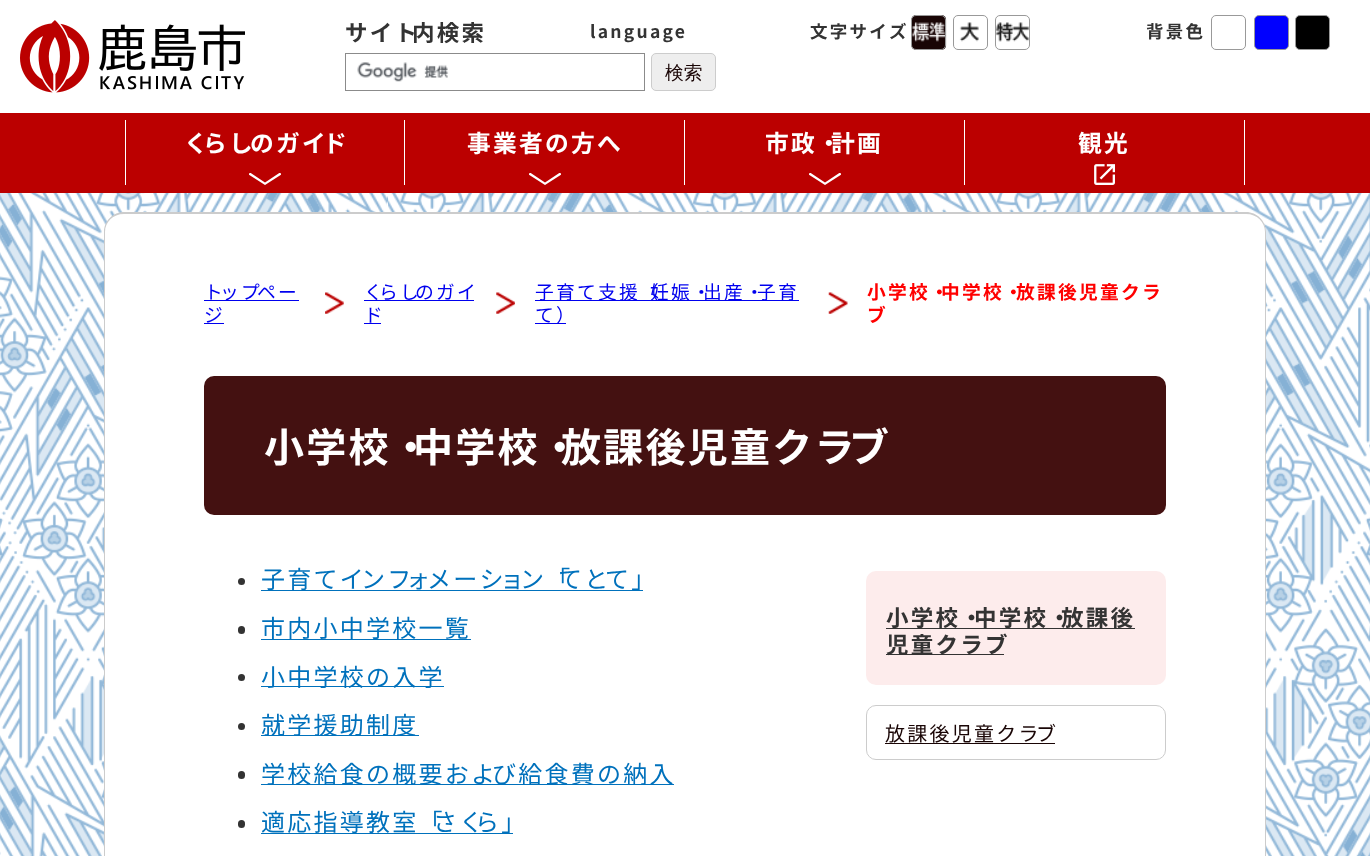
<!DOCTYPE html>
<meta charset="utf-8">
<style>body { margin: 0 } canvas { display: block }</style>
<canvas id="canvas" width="1370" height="856"></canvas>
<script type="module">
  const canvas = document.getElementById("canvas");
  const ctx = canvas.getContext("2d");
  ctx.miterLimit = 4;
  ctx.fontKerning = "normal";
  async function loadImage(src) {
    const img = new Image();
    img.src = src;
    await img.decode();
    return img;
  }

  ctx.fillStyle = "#ffffff";
  ctx.fillRect(0, 0, 1370, 856);
  ctx.drawImage(await loadImage("img1.png"), 0, 193, 1370, 663);
  ctx.drawImage(await loadImage("img2.png"), 20, 20, 225, 73);
  ctx.letterSpacing = "2.25px";
  ctx.font = "bold 22.5px Noto Sans JP";
  ctx.fillStyle = "#333333";
  ctx.fillText("サイト", 345, 41);
  ctx.fillText("内検索", 412, 41);
  ctx.drawImage(await loadImage("img3.png"), 357, 62, 92, 20);
  ctx.strokeStyle = "#8b8b8b";
  ctx.strokeRect(345.5, 53.5, 299, 37);
  ctx.fillStyle = "#eeeeee";
  ctx.beginPath();
  ctx.roundRect(651.5, 53.5, 64, 37, 4.5);
  ctx.fill();
  ctx.strokeStyle = "#cccccc";
  ctx.stroke();
  ctx.letterSpacing = "0px";
  ctx.font = "500 18.75px WenQuanYi Zen Hei";
  ctx.fillStyle = "#190505";
  ctx.fillText("検索", 665, 79);
  ctx.letterSpacing = "2.25px";
  ctx.font = "bold 17.5px Noto Sans JP";
  ctx.fillStyle = "#333333";
  ctx.fillText("language", 590, 38);
  ctx.fillText("文字サイズ", 810, 38);
  ctx.drawImage(await loadImage("img4.png"), 911, 15, 36, 35);
  ctx.beginPath();
  ctx.roundRect(911.5, 15.5, 34, 34, 4.5);
  ctx.strokeStyle = "#999999";
  ctx.stroke();
  ctx.drawImage(await loadImage("img5.png"), 953, 15, 35, 35);
  ctx.beginPath();
  ctx.roundRect(953.5, 15.5, 34, 34, 4.5);
  ctx.stroke();
  ctx.drawImage(await loadImage("img6.png"), 995, 15, 35, 35);
  ctx.beginPath();
  ctx.roundRect(995.5, 15.5, 34, 34, 4.5);
  ctx.stroke();
  ctx.fillText("背景色", 1146, 38);
  ctx.beginPath();
  ctx.roundRect(1211.5, 15.5, 34, 34, 4.5);
  ctx.stroke();
  ctx.fillStyle = "#0000ff";
  ctx.beginPath();
  ctx.roundRect(1254.5, 15.5, 34, 34, 4.5);
  ctx.fill();
  ctx.stroke();
  ctx.fillStyle = "#000000";
  ctx.beginPath();
  ctx.roundRect(1295.5, 15.5, 34, 34, 4.5);
  ctx.fill();
  ctx.stroke();
  ctx.fillStyle = "#bb0000";
  ctx.fillRect(0, 113, 1370, 80);
  ctx.save();
  ctx.beginPath();
  ctx.rect(249, 173, 32, 12);
  ctx.clip();
  ctx.fillStyle = "#ffffff";
  ctx.beginPath();
  ctx.moveTo(281.5, 174.5);
  ctx.lineTo(265, 185);
  ctx.lineTo(248.5, 174.5);
  ctx.lineTo(250, 172.5);
  ctx.lineTo(265, 182.5);
  ctx.lineTo(280, 172.5);
  ctx.closePath();
  ctx.fill();
  ctx.restore();
  ctx.fillStyle = "#ffffff";
  ctx.fillRect(404, 120, 1, 65);
  ctx.fillRect(125, 120, 1, 65);
  ctx.font = "bold 23.75px Noto Sans JP";
  ctx.fillText("く", 184, 152);
  ctx.fillText("らし", 203, 152);
  ctx.fillText("のガイ", 250, 152);
  ctx.fillText("ド", 323, 152);
  ctx.save();
  ctx.beginPath();
  ctx.rect(529, 173, 32, 12);
  ctx.clip();
  ctx.beginPath();
  ctx.moveTo(561.5, 174.5);
  ctx.lineTo(545, 185);
  ctx.lineTo(528.5, 174.5);
  ctx.lineTo(530, 172.5);
  ctx.lineTo(545, 182.5);
  ctx.lineTo(560, 172.5);
  ctx.closePath();
  ctx.fill();
  ctx.restore();
  ctx.fillRect(684, 120, 1, 65);
  ctx.fillText("事業者の方へ", 467, 152);
  ctx.save();
  ctx.beginPath();
  ctx.rect(809, 173, 32, 12);
  ctx.clip();
  ctx.beginPath();
  ctx.moveTo(841.5, 174.5);
  ctx.lineTo(825, 185);
  ctx.lineTo(808.5, 174.5);
  ctx.lineTo(810, 172.5);
  ctx.lineTo(825, 182.5);
  ctx.lineTo(840, 172.5);
  ctx.closePath();
  ctx.fill();
  ctx.restore();
  ctx.fillRect(964, 120, 1, 65);
  ctx.fillText("市政・", 765, 152);
  ctx.fillText("計画", 831, 152);
  ctx.drawImage(await loadImage("img7.png"), 1094, 164, 21, 21);
  ctx.fillRect(1244, 120, 1, 65);
  ctx.fillText("観光", 1078, 152);
  ctx.beginPath();
  ctx.moveTo(124, 213);
  ctx.lineTo(1246, 213);
  ctx.bezierCurveTo(1257, 213, 1266, 222, 1266, 233);
  ctx.lineTo(1266, 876);
  ctx.lineTo(104, 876);
  ctx.lineTo(104, 233);
  ctx.bezierCurveTo(104, 222, 113, 213, 124, 213);
  ctx.closePath();
  ctx.fill();
  ctx.fillStyle = "#cccccc";
  ctx.beginPath();
  ctx.moveTo(124, 212);
  ctx.lineTo(1246, 212);
  ctx.bezierCurveTo(1257, 212, 1266, 221, 1266, 232);
  ctx.lineTo(1266, 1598);
  ctx.lineTo(104, 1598);
  ctx.lineTo(104, 232);
  ctx.bezierCurveTo(104, 221, 113, 212, 124, 212);
  ctx.closePath();
  ctx.moveTo(124, 214);
  ctx.lineTo(1246, 214);
  ctx.bezierCurveTo(1257, 214, 1265, 222, 1265, 232);
  ctx.lineTo(1265, 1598);
  ctx.lineTo(105, 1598);
  ctx.lineTo(105, 232);
  ctx.bezierCurveTo(105, 222, 113, 214, 124, 214);
  ctx.closePath();
  ctx.fill("evenodd");
  ctx.drawImage(await loadImage("img8.png"), 325, 292, 19, 22);
  ctx.fillStyle = "#0000ee";
  ctx.fillRect(204, 300, 95, 1);
  ctx.font = "18.75px Noto Sans JP";
  ctx.fillText("ト", 204, 299);
  ctx.fillText("ップ", 220, 299);
  ctx.fillText("ペー", 257, 299);
  ctx.fillText("ジ", 204, 322);
  ctx.fillRect(204, 323, 20, 1);
  ctx.drawImage(await loadImage("img9.png"), 496, 292, 19, 22);
  ctx.fillRect(364, 300, 110, 1);
  ctx.fillText("く", 364, 299);
  ctx.fillText("らし", 379, 299);
  ctx.fillText("のガイ", 415, 299);
  ctx.fillText("ド", 364, 322);
  ctx.fillRect(364, 323, 17, 1);
  ctx.drawImage(await loadImage("img10.png"), 828, 292, 20, 22);
  ctx.fillRect(535, 300, 264, 1);
  ctx.fillText("子育て支援（", 535, 299);
  ctx.fillText("妊娠・", 650, 299);
  ctx.fillText("出産・", 703, 299);
  ctx.fillText("子育", 757, 299);
  ctx.fillRect(535, 323, 31, 1);
  ctx.fillText("て）", 535, 322);
  ctx.font = "bold 18.75px Noto Sans JP";
  ctx.fillStyle = "#ff0000";
  ctx.fillText("小学校・", 867, 299);
  ctx.fillText("中学校・", 941, 299);
  ctx.fillText("放課後児童クラ", 1016, 299);
  ctx.fillText("ブ", 867, 322);
  ctx.fillStyle = "#441111";
  ctx.beginPath();
  ctx.roundRect(204, 376, 962, 139, 10);
  ctx.fill();
  ctx.font = "bold 40px Noto Sans JP";
  ctx.fillStyle = "#ffffff";
  ctx.fillText("小学校・", 264, 462);
  ctx.fillText("中学校・", 413, 462);
  ctx.fillText("放課後児童クラ", 561, 462);
  ctx.fillText("ブ", 849, 462);
  ctx.fillStyle = "#333333";
  ctx.beginPath();
  ctx.arc(241.5, 581.5, 3.5, 0, Math.PI * 2);
  ctx.fill();
  ctx.fillStyle = "#0071bc";
  ctx.fillRect(261, 590, 382, 1);
  ctx.font = "24px Noto Sans JP";
  ctx.fillText("子育てイ", 261, 588);
  ctx.fillText("ンフ", 361, 588);
  ctx.fillText("ォ", 406, 588);
  ctx.fillText("メーシ", 427, 588);
  ctx.fillText("ョ", 500, 588);
  ctx.fillText("ン「", 520, 588);
  ctx.fillText("てと", 558, 588);
  ctx.fillText("て」", 605, 588);
  ctx.fillStyle = "#333333";
  ctx.beginPath();
  ctx.roundRect(238, 626, 7, 8, 3.5);
  ctx.fill();
  ctx.fillStyle = "#0071bc";
  ctx.fillText("市内小中学校一覧", 261, 637);
  ctx.fillRect(261, 639, 210, 1);
  ctx.fillStyle = "#333333";
  ctx.beginPath();
  ctx.arc(241.5, 677.5, 3.5, 0, Math.PI * 2);
  ctx.fill();
  ctx.fillStyle = "#0071bc";
  ctx.fillRect(261, 686, 183, 1);
  ctx.fillText("小中学校の入学", 261, 686);
  ctx.fillStyle = "#333333";
  ctx.beginPath();
  ctx.arc(241.5, 726.5, 3.5, 0, Math.PI * 2);
  ctx.fill();
  ctx.fillStyle = "#0071bc";
  ctx.fillRect(261, 735, 158, 1);
  ctx.fillText("就学援助制度", 261, 734);
  ctx.fillStyle = "#333333";
  ctx.beginPath();
  ctx.roundRect(238, 771, 7, 8, 3.5);
  ctx.fill();
  ctx.fillStyle = "#0071bc";
  ctx.fillRect(261, 784, 413, 1);
  ctx.fillText("学校給食の概要およ", 261, 783);
  ctx.fillText("び給食費の納入", 492, 783);
  ctx.fillStyle = "#333333";
  ctx.beginPath();
  ctx.roundRect(238, 820, 7, 8, 3.5);
  ctx.fill();
  ctx.fillStyle = "#0071bc";
  ctx.fillRect(261, 833, 252, 1);
  ctx.fillText("適応指導教室「", 261, 831);
  ctx.fillText("さく", 433, 831);
  ctx.fillText("ら」", 475, 831);
  ctx.fillStyle = "#fdecec";
  ctx.beginPath();
  ctx.roundRect(866, 571, 300, 114, 10);
  ctx.fill();
  ctx.fillStyle = "#333333";
  ctx.fillRect(886, 628, 249, 1);
  ctx.font = "bold 22.5px Noto Sans JP";
  ctx.fillText("小学校・", 886, 626);
  ctx.fillText("中学校・", 974, 626);
  ctx.fillText("放課後", 1061, 626);
  ctx.fillRect(886, 654, 118, 1);
  ctx.fillText("児童クラブ", 886, 653);
  ctx.beginPath();
  ctx.roundRect(866.5, 705.5, 299, 54, 9.5);
  ctx.strokeStyle = "#cccccc";
  ctx.stroke();
  ctx.font = "20px Noto Sans JP";
  ctx.fillStyle = "#190505";
  ctx.fillText("放課後児童クラ", 885, 741);
  ctx.fillText("ブ", 1036, 741);
  ctx.fillRect(885, 743, 170, 1);
</script>
